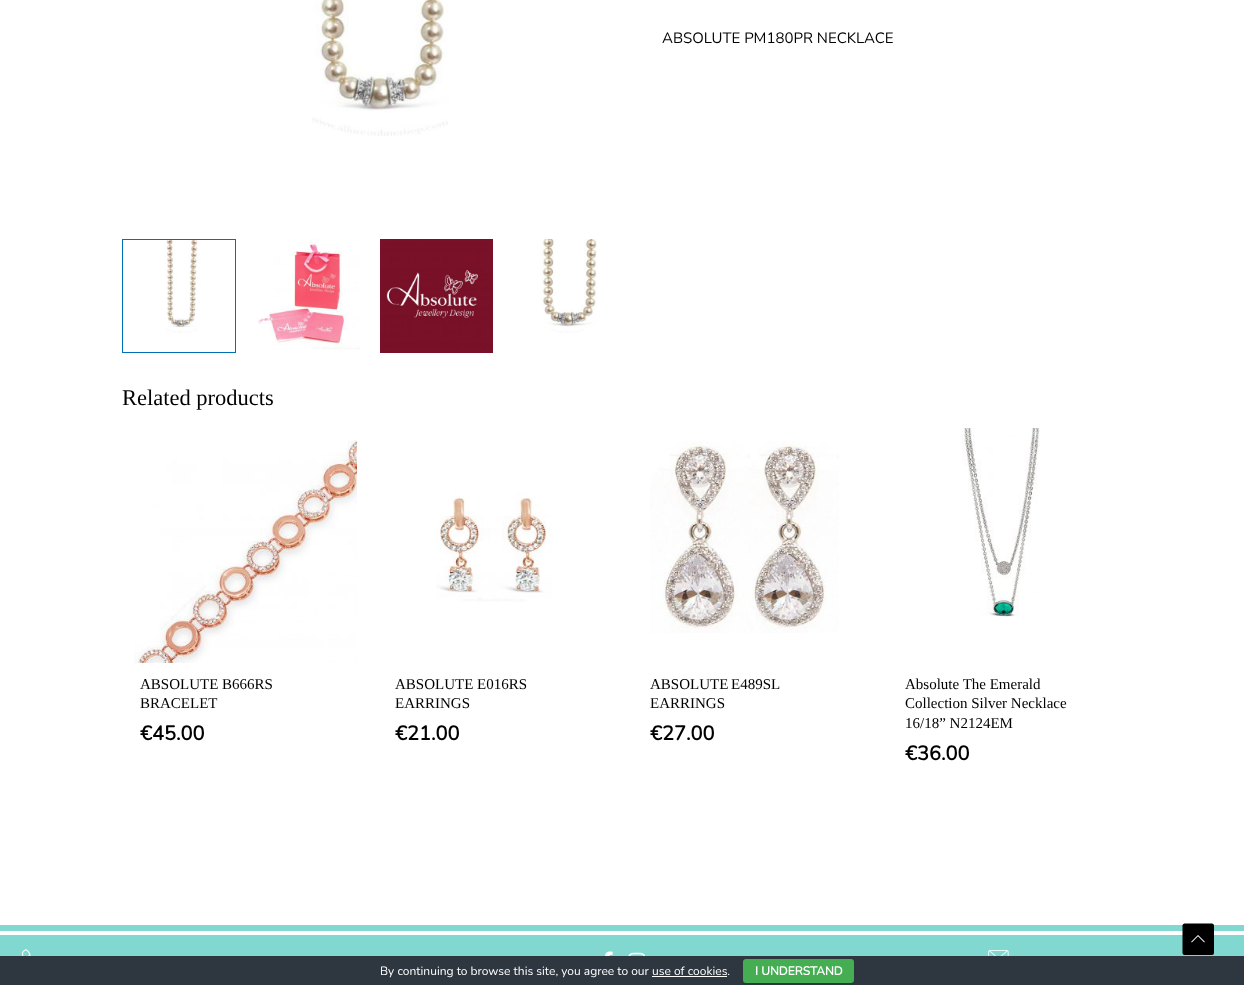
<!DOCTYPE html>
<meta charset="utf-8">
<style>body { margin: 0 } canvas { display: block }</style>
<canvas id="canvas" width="1244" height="985"></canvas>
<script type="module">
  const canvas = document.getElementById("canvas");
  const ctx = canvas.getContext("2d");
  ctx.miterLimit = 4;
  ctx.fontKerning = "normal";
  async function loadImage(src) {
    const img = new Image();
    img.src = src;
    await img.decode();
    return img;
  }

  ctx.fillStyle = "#ffffff";
  ctx.fillRect(0, 0, 1244, 985);
  ctx.drawImage(await loadImage("img1.png"), 312, 0, 137, 136);
  ctx.drawImage(await loadImage("img2.png"), 165, 240, 36, 93);
  ctx.strokeStyle = "#0170b9";
  ctx.strokeRect(122.5, 239.5, 113, 113);
  ctx.drawImage(await loadImage("img3.png"), 257, 239, 103, 111);
  ctx.drawImage(await loadImage("img4.png"), 380, 239, 113, 114);
  ctx.drawImage(await loadImage("img5.png"), 540, 239, 57, 94);
  ctx.font = "200 15px Nunito";
  ctx.fillStyle = "#000000";
  ctx.fillText("ABSOLUTE PM180PR NECKLACE", 662, 43);
  ctx.font = "22.5px Liberation Serif";
  ctx.fillText("Related products", 122, 405);
  ctx.drawImage(await loadImage("img6.png"), 134, 440, 223, 223);
  ctx.font = "15px Liberation Serif";
  ctx.fillText("ABSOLUTE B666RS", 140, 689);
  ctx.fillText("BRACELET", 140, 708);
  ctx.font = "bold 20px Nunito";
  ctx.fillText("€45.00", 140, 740);
  ctx.drawImage(await loadImage("img7.png"), 436, 491, 116, 111);
  ctx.font = "15px Liberation Serif";
  ctx.fillText("ABSOLUTE E016RS", 395, 689);
  ctx.fillText("EARRINGS", 395, 708);
  ctx.font = "bold 20px Nunito";
  ctx.fillText("€21.00", 395, 740);
  ctx.drawImage(await loadImage("img8.png"), 650, 441, 189, 192);
  ctx.wordSpacing = "-1px";
  ctx.font = "15px Liberation Serif";
  ctx.fillText("ABSOLUTE E489SL", 650, 689);
  ctx.wordSpacing = "0px";
  ctx.fillText("EARRINGS", 650, 708);
  ctx.font = "bold 20px Nunito";
  ctx.fillText("€27.00", 650, 740);
  ctx.drawImage(await loadImage("img9.png"), 962, 428, 78, 189);
  ctx.font = "15px Liberation Serif";
  ctx.fillText("Absolute The Emerald", 905, 689);
  ctx.fillText("Collection Silver Necklace", 905, 708);
  ctx.fillText("16/18” N2124EM", 905, 728);
  ctx.font = "bold 20px Nunito";
  ctx.fillText("€36.00", 905, 760);
  ctx.fillStyle = "#81d8d0";
  ctx.fillRect(0, 925, 1244, 6);
  ctx.fillRect(0, 935, 1244, 21);
  ctx.drawImage(await loadImage("img10.png"), 22, 949, 9, 7);
  ctx.drawImage(await loadImage("img11.png"), 605, 951, 8, 5);
  ctx.drawImage(await loadImage("img12.png"), 628, 952, 18, 4);
  ctx.drawImage(await loadImage("img13.png"), 988, 950, 21, 6);
  ctx.fillStyle = "#000000";
  ctx.beginPath();
  ctx.moveTo(1212, 955);
  ctx.lineTo(1184.5, 955);
  ctx.bezierCurveTo(1183.5, 955, 1182.5, 954, 1182.5, 953);
  ctx.lineTo(1182.5, 925.5);
  ctx.bezierCurveTo(1182.5, 924.5, 1183.5, 923.5, 1184.5, 923.5);
  ctx.lineTo(1212, 923.5);
  ctx.bezierCurveTo(1213, 923.5, 1214, 924.5, 1214, 925.5);
  ctx.lineTo(1214, 953);
  ctx.bezierCurveTo(1214, 954, 1213, 955, 1212, 955);
  ctx.closePath();
  ctx.fill();
  ctx.drawImage(await loadImage("img14.png"), 1191, 935, 14, 8);
  ctx.fillStyle = "#2e363f";
  ctx.fillRect(0, 956, 1244, 29);
  ctx.font = "200 12px Nunito";
  ctx.fillStyle = "#ffffff";
  ctx.fillText("By continuing to browse this site, you agree to our use of cookies.", 380, 975);
  ctx.fillStyle = "#45ae52";
  ctx.beginPath();
  ctx.roundRect(743, 959, 111, 24, 3);
  ctx.fill();
  ctx.font = "bold 12px Nunito";
  ctx.fillStyle = "#ffffff";
  ctx.fillText("I UNDERSTAND", 755, 975);
  ctx.fillRect(652, 976, 75, 1);
</script>
